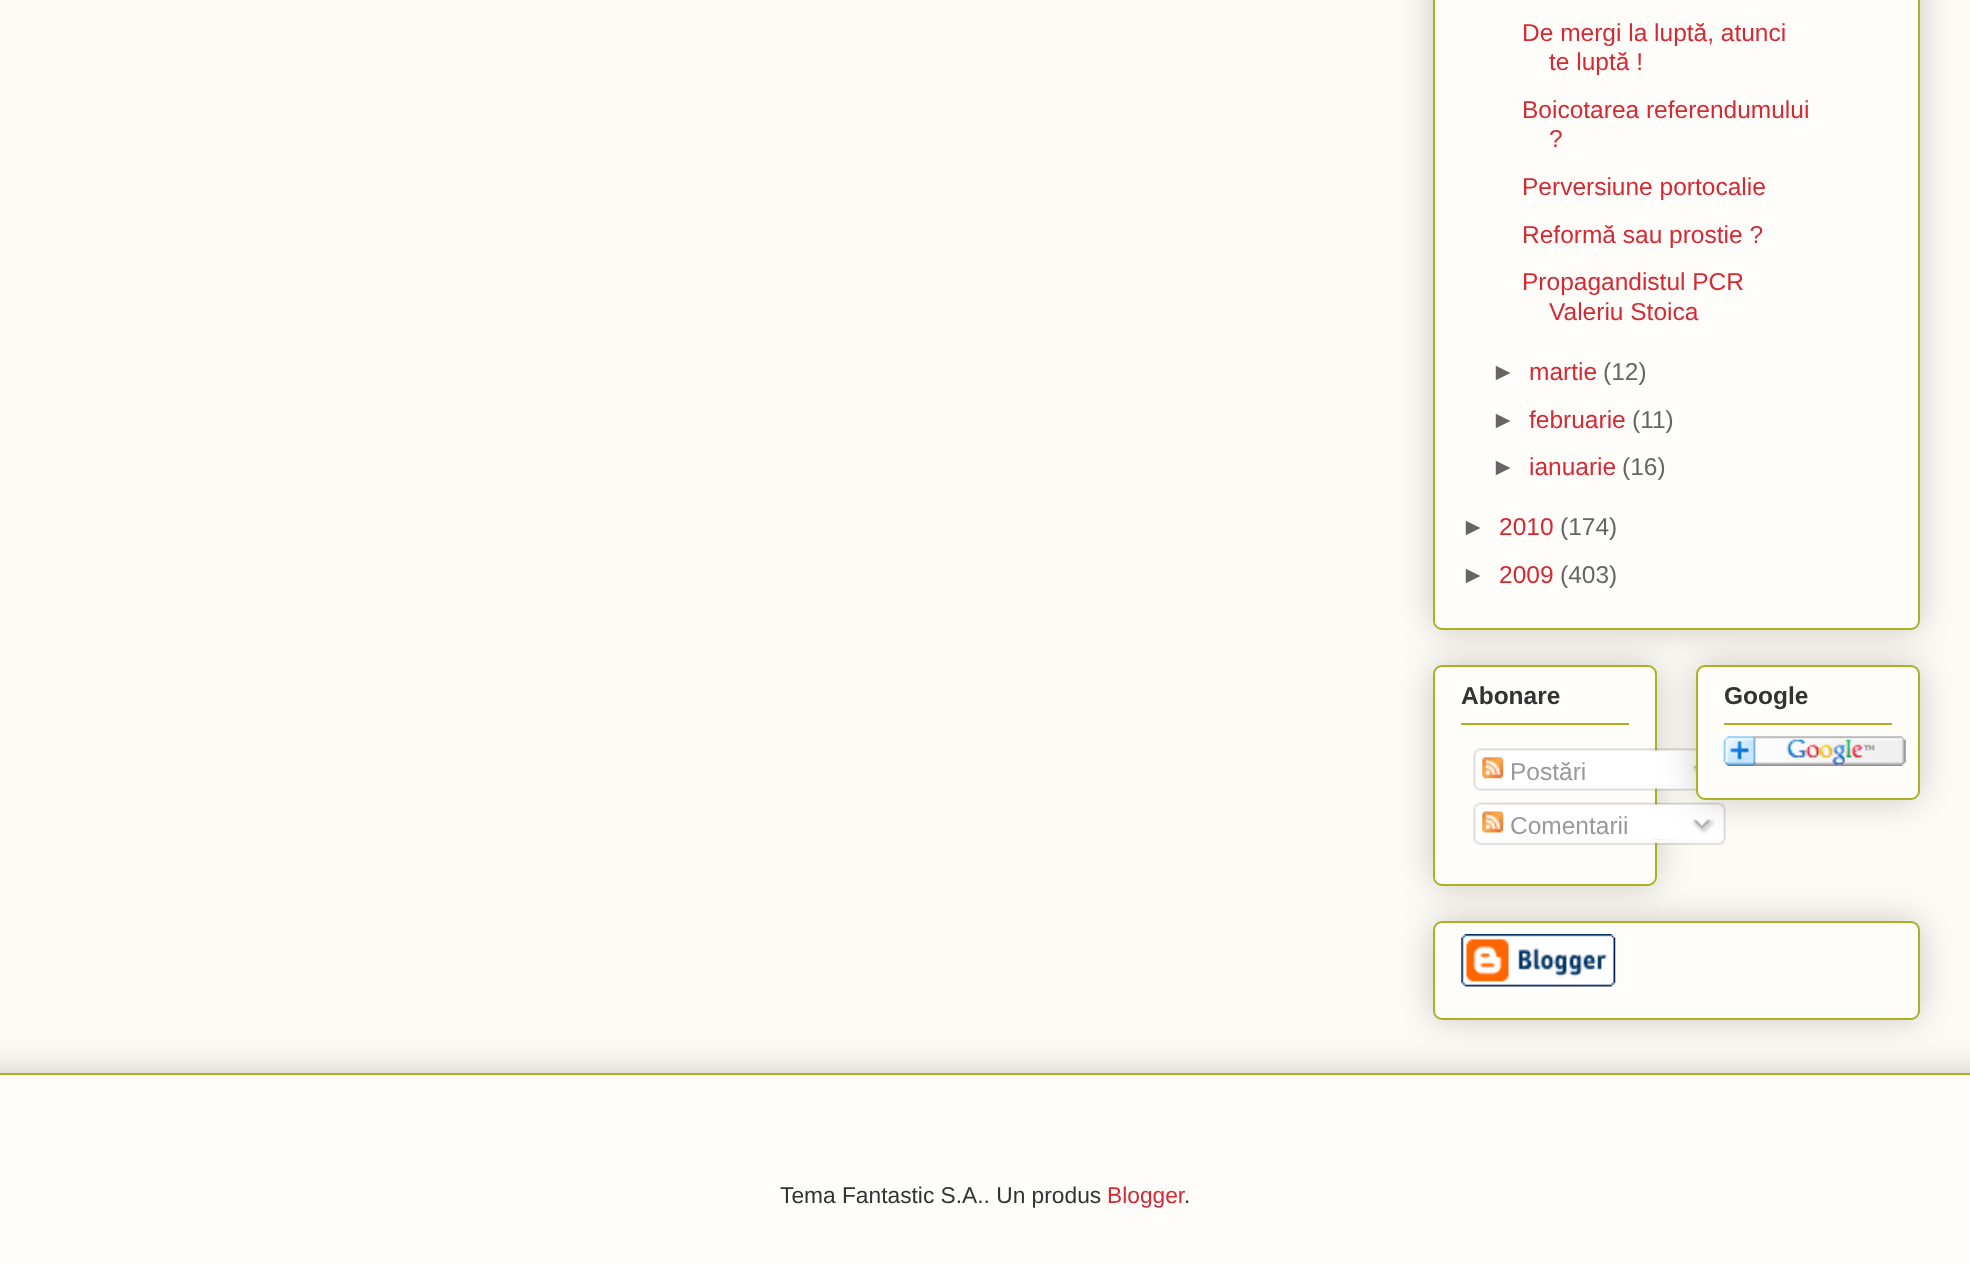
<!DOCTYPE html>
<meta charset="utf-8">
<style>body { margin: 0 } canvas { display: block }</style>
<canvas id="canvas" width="1970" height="1264"></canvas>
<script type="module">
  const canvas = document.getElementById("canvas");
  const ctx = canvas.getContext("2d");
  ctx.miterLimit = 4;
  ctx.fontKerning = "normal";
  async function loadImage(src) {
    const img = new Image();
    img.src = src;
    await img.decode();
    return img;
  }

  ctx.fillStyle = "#fcfbf5";
  ctx.fillRect(0, 0, 1970, 1264);
  ctx.fillStyle = "rgba(0, 0, 0, 0.2)";
  ctx.filter = "blur(17.5px)";
  ctx.beginPath();
  ctx.roundRect(1433, -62, 487, 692, 9);
  ctx.fill();
  ctx.filter = "none";
  ctx.fillStyle = "#fefdfa";
  ctx.beginPath();
  ctx.roundRect(1434, -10, 485, 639, 8);
  ctx.fill();
  ctx.strokeStyle = "#aab123";
  ctx.lineWidth = 2;
  ctx.stroke();
  ctx.font = "24.5px Liberation Sans";
  ctx.fillStyle = "#d52a33";
  ctx.fillText("De mergi la luptă, atunci", 1522, 41);
  ctx.fillText("te luptă !", 1549, 70);
  ctx.fillText("Boicotarea referendumului", 1522, 118);
  ctx.fillText("?", 1549, 147);
  ctx.fillText("Perversiune portocalie", 1522, 195);
  ctx.fillText("Reformă sau prostie ?", 1522, 243);
  ctx.fillText("Propagandistul PCR", 1522, 290);
  ctx.fillText("Valeriu Stoica", 1549, 320);
  ctx.fillStyle = "#666666";
  ctx.fillText("►", 1491, 380);
  ctx.fillStyle = "#d52a33";
  ctx.fillText("martie", 1529, 380);
  ctx.fillStyle = "#666666";
  ctx.fillText("(12)", 1603, 380);
  ctx.fillText("►", 1491, 428);
  ctx.fillStyle = "#d52a33";
  ctx.fillText("februarie", 1529, 428);
  ctx.fillStyle = "#666666";
  ctx.fillText("(11)", 1632, 428);
  ctx.fillText("►", 1491, 475);
  ctx.fillStyle = "#d52a33";
  ctx.fillText("ianuarie", 1529, 475);
  ctx.fillStyle = "#666666";
  ctx.fillText("(16)", 1622, 475);
  ctx.fillText("►", 1461, 535);
  ctx.fillStyle = "#d52a33";
  ctx.fillText("2010", 1499, 535);
  ctx.fillStyle = "#666666";
  ctx.fillText("(174)", 1560, 535);
  ctx.fillText("►", 1461, 583);
  ctx.fillStyle = "#d52a33";
  ctx.fillText("2009", 1499, 583);
  ctx.fillStyle = "#666666";
  ctx.fillText("(403)", 1560, 583);
  ctx.fillStyle = "rgba(0, 0, 0, 0.2)";
  ctx.filter = "blur(17.5px)";
  ctx.beginPath();
  ctx.roundRect(1433, 665, 224, 221, 9);
  ctx.fill();
  ctx.filter = "none";
  ctx.fillStyle = "#fefdfa";
  ctx.beginPath();
  ctx.roundRect(1434, 666, 222, 219, 8);
  ctx.fill();
  ctx.stroke();
  ctx.font = "bold 24.5px Liberation Sans";
  ctx.fillStyle = "#333333";
  ctx.fillText("Abonare", 1461, 704);
  ctx.fillStyle = "#aab123";
  ctx.fillRect(1461, 723, 168, 2);
  ctx.drawImage(await loadImage("img1.png"), 1473, 748, 223, 38);
  ctx.drawImage(await loadImage("img2.png"), 1482, 757, 22, 22);
  ctx.font = "24.5px Liberation Sans";
  ctx.fillStyle = "#999999";
  ctx.fillText("Postări", 1510, 780);
  ctx.drawImage(await loadImage("img3.png"), 1692, 764, 4, 12);
  ctx.drawImage(await loadImage("img4.png"), 1473, 785, 223, 6);
  ctx.drawImage(await loadImage("img5.png"), 1473, 802, 253, 38);
  ctx.drawImage(await loadImage("img6.png"), 1482, 811, 22, 22);
  ctx.fillText("Comentarii", 1510, 834);
  ctx.drawImage(await loadImage("img7.png"), 1692, 819, 23, 15);
  ctx.drawImage(await loadImage("img8.png"), 1473, 839, 253, 6);
  ctx.fillStyle = "rgba(0, 0, 0, 0.2)";
  ctx.filter = "blur(17.5px)";
  ctx.beginPath();
  ctx.roundRect(1696, 665, 224, 135, 9);
  ctx.fill();
  ctx.filter = "none";
  ctx.fillStyle = "#fefdfa";
  ctx.beginPath();
  ctx.roundRect(1697, 666, 222, 133, 8);
  ctx.fill();
  ctx.stroke();
  ctx.font = "bold 24.5px Liberation Sans";
  ctx.fillStyle = "#333333";
  ctx.fillText("Google", 1724, 704);
  ctx.fillStyle = "#aab123";
  ctx.fillRect(1724, 723, 168, 2);
  ctx.drawImage(await loadImage("img9.png"), 1723, 736, 183, 30);
  ctx.fillStyle = "rgba(0, 0, 0, 0.2)";
  ctx.filter = "blur(17.5px)";
  ctx.beginPath();
  ctx.roundRect(1433, 921, 487, 99, 9);
  ctx.fill();
  ctx.filter = "none";
  ctx.fillStyle = "#fefdfa";
  ctx.beginPath();
  ctx.roundRect(1434, 922, 485, 97, 8);
  ctx.fill();
  ctx.stroke();
  ctx.drawImage(await loadImage("img10.png"), 1461, 934, 155, 53);
  ctx.fillStyle = "rgba(0, 0, 0, 0.2)";
  ctx.filter = "blur(17.5px)";
  ctx.beginPath();
  ctx.rect(-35, 1073, 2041, 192);
  ctx.fill();
  ctx.filter = "none";
  ctx.fillStyle = "#fefdfa";
  ctx.fillRect(0, 1075, 1970, 189);
  ctx.fillStyle = "#aab123";
  ctx.fillRect(0, 1073, 1970, 2);
  ctx.font = "22.75px Liberation Sans";
  ctx.fillStyle = "#333333";
  ctx.fillText("Tema Fantastic S.A.. Un produs", 780, 1203);
  ctx.fillStyle = "#d52a33";
  ctx.fillText("Blogger", 1107, 1203);
  ctx.fillStyle = "#333333";
  ctx.fillText(".", 1184, 1203);
</script>
